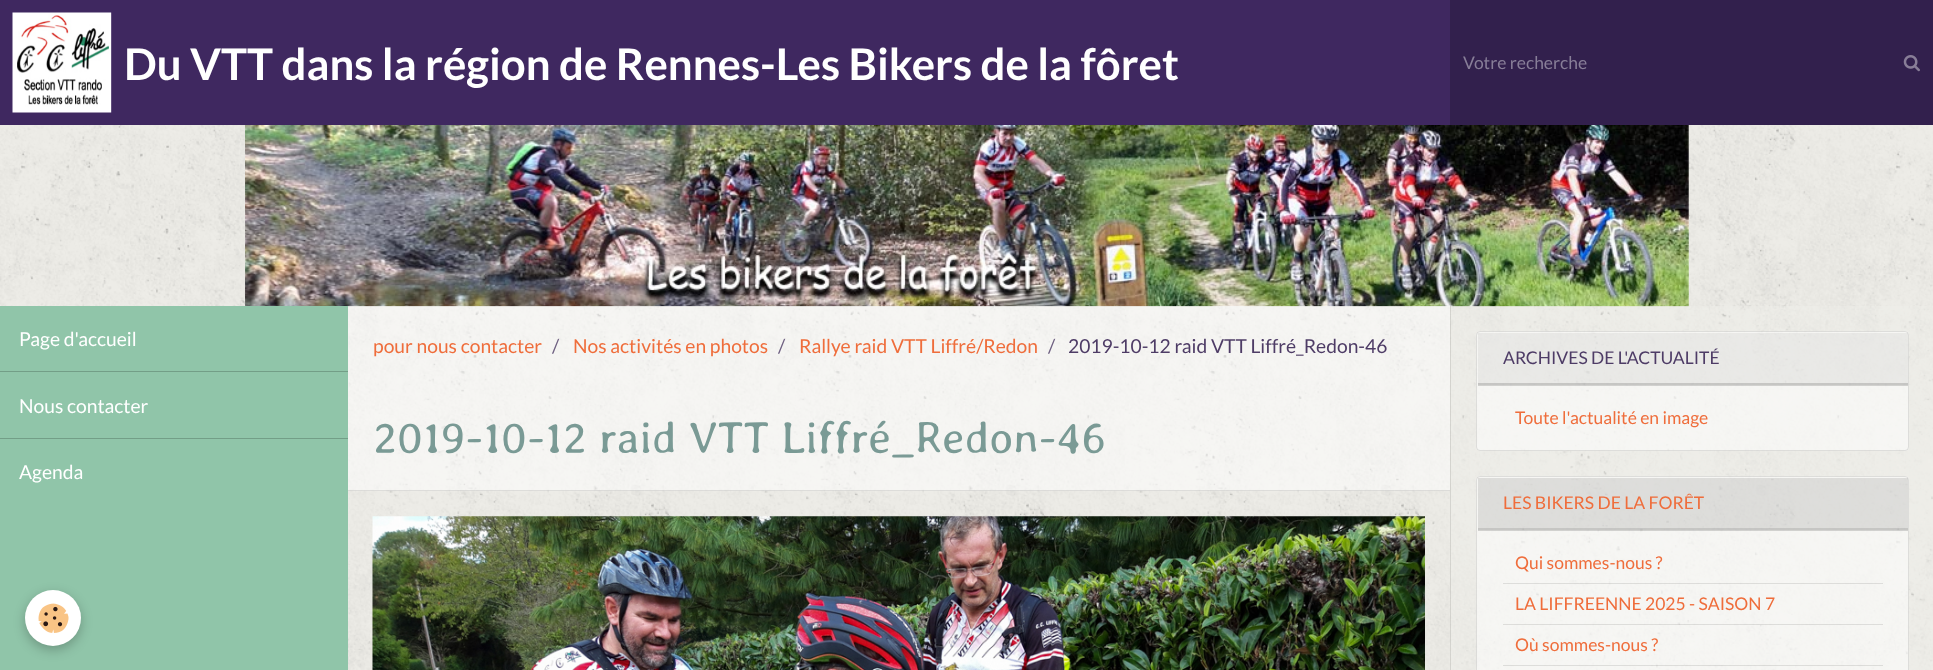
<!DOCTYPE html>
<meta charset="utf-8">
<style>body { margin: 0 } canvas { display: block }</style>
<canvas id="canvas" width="1933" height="670"></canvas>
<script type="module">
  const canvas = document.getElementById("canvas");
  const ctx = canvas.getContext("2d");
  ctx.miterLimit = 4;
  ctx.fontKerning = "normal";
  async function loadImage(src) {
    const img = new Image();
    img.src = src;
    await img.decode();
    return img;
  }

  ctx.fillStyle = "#f1f0eb";
  ctx.fillRect(0, 0, 1933, 670);
  ctx.drawImage(await loadImage("img1.png"), 0, 125, 1933, 545);
  ctx.fillStyle = "#3f2860";
  ctx.fillRect(0, 0, 1450, 125);
  ctx.drawImage(await loadImage("img2.png"), 12, 12, 100, 101);
  ctx.font = "bold 43.75px Lato";
  ctx.fillStyle = "#ffffff";
  ctx.fillText("Du VTT dans la région de Rennes-Les Bikers de la fôret", 124, 80);
  ctx.fillStyle = "#32204d";
  ctx.fillRect(1450, 0, 483, 125);
  ctx.font = "17.5px Lato";
  ctx.fillStyle = "#887e98";
  ctx.fillText("Votre recherche", 1463, 69);
  ctx.drawImage(await loadImage("img3.png"), 1903, 55, 17, 17);
  ctx.drawImage(await loadImage("img4.png"), 245, 125, 1444, 182);
  ctx.fillStyle = "#90c5a9";
  ctx.fillRect(0, 306, 348, 364);
  ctx.fillStyle = "#739e87";
  ctx.fillRect(0, 371, 348, 1);
  ctx.font = "19.25px Lato";
  ctx.fillStyle = "#ffffff";
  ctx.fillText("Page d'accueil", 19, 346);
  ctx.fillStyle = "#739e87";
  ctx.fillRect(0, 438, 348, 1);
  ctx.fillStyle = "#ffffff";
  ctx.fillText("Nous contacter", 19, 413);
  ctx.fillText("Agenda", 19, 479);
  ctx.fillStyle = "rgba(255, 255, 255, 0.5)";
  ctx.fillRect(348, 306, 1102, 78);
  ctx.fillStyle = "#ef6d3b";
  ctx.fillText("pour nous contacter", 373, 353);
  ctx.fillStyle = "#6f6182";
  ctx.fillText("/", 552, 353);
  ctx.fillStyle = "#ef6d3b";
  ctx.fillText("Nos activités en photos", 573, 353);
  ctx.fillStyle = "#6f6182";
  ctx.fillText("/", 778, 353);
  ctx.fillStyle = "#ef6d3b";
  ctx.fillText("Rallye raid VTT Liffré/Redon", 799, 353);
  ctx.fillStyle = "#6f6182";
  ctx.fillText("/", 1048, 353);
  ctx.fillStyle = "#4e3c66";
  ctx.fillText("2019-10-12 raid VTT Liffré_Redon-46", 1068, 353);
  ctx.fillStyle = "rgba(255, 255, 255, 0.5)";
  ctx.fillRect(348, 384, 1102, 107);
  ctx.fillStyle = "rgba(0, 0, 0, 0.1)";
  ctx.fillRect(348, 490, 1102, 1);
  ctx.font = "300 45px Averia Libre";
  ctx.fillStyle = "#7a9a95";
  ctx.fillText("2019-10-12 raid VTT Liffré_Redon-46", 373, 453);
  ctx.drawImage(await loadImage("img5.png"), 372, 516, 1053, 154);
  ctx.fillStyle = "rgba(241, 240, 235, 0.4)";
  ctx.fillRect(1450, 306, 483, 364);
  ctx.fillStyle = "rgba(0, 0, 0, 0.1)";
  ctx.fillRect(1450, 306, 1, 364);
  ctx.fillStyle = "rgba(255, 255, 255, 0.5)";
  ctx.beginPath();
  ctx.roundRect(1476, 331, 433, 120, 4);
  ctx.fill();
  ctx.beginPath();
  ctx.roundRect(1476.5, 331.5, 432, 119, 3.5);
  ctx.strokeStyle = "rgba(0, 0, 0, 0.1)";
  ctx.stroke();
  ctx.fillStyle = "rgba(0, 0, 0, 0.05)";
  ctx.fillRect(1478, 333, 430, 52);
  ctx.fillStyle = "rgba(0, 0, 0, 0.15)";
  ctx.fillRect(1478, 383, 430, 3);
  ctx.font = "17.5px Lato";
  ctx.fillStyle = "#4e3c66";
  ctx.fillText("ARCHIVES DE L'ACTUALITÉ", 1503, 364);
  ctx.fillStyle = "#ef6d3b";
  ctx.fillText("Toute l'actualité en image", 1515, 424);
  ctx.fillStyle = "rgba(255, 255, 255, 0.5)";
  ctx.beginPath();
  ctx.roundRect(1476, 476, 433, 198, 4);
  ctx.fill();
  ctx.beginPath();
  ctx.roundRect(1476.5, 476.5, 432, 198, 3.5);
  ctx.stroke();
  ctx.fillStyle = "rgba(0, 0, 0, 0.05)";
  ctx.fillRect(1478, 478, 430, 52);
  ctx.fillStyle = "rgba(0, 0, 0, 0.15)";
  ctx.fillRect(1478, 528, 430, 3);
  ctx.fillStyle = "rgba(0, 0, 0, 0.05)";
  ctx.fillRect(1478, 478, 430, 50);
  ctx.fillStyle = "#ef6d3b";
  ctx.fillText("LES BIKERS DE LA FORÊT", 1503, 509);
  ctx.fillStyle = "rgba(0, 0, 0, 0.1)";
  ctx.fillRect(1503, 583, 380, 1);
  ctx.fillStyle = "#ef6d3b";
  ctx.fillText("Qui sommes-nous ?", 1515, 569);
  ctx.fillStyle = "rgba(0, 0, 0, 0.1)";
  ctx.fillRect(1503, 624, 380, 1);
  ctx.fillStyle = "#ef6d3b";
  ctx.fillText("LA LIFFREENNE 2025 - SAISON 7", 1515, 610);
  ctx.fillStyle = "rgba(0, 0, 0, 0.1)";
  ctx.fillRect(1503, 665, 380, 1);
  ctx.fillStyle = "#ef6d3b";
  ctx.fillText("Où sommes-nous ?", 1515, 651);
  ctx.fillStyle = "rgba(0, 0, 0, 0.24)";
  ctx.filter = "blur(6px)";
  ctx.beginPath();
  ctx.roundRect(25, 594, 56, 56, 28);
  ctx.fill();
  ctx.filter = "none";
  ctx.fillStyle = "#ffffff";
  ctx.beginPath();
  ctx.arc(53, 618, 28, 0, Math.PI * 2);
  ctx.fill();
  ctx.drawImage(await loadImage("img6.png"), 38, 603, 31, 30);
</script>
